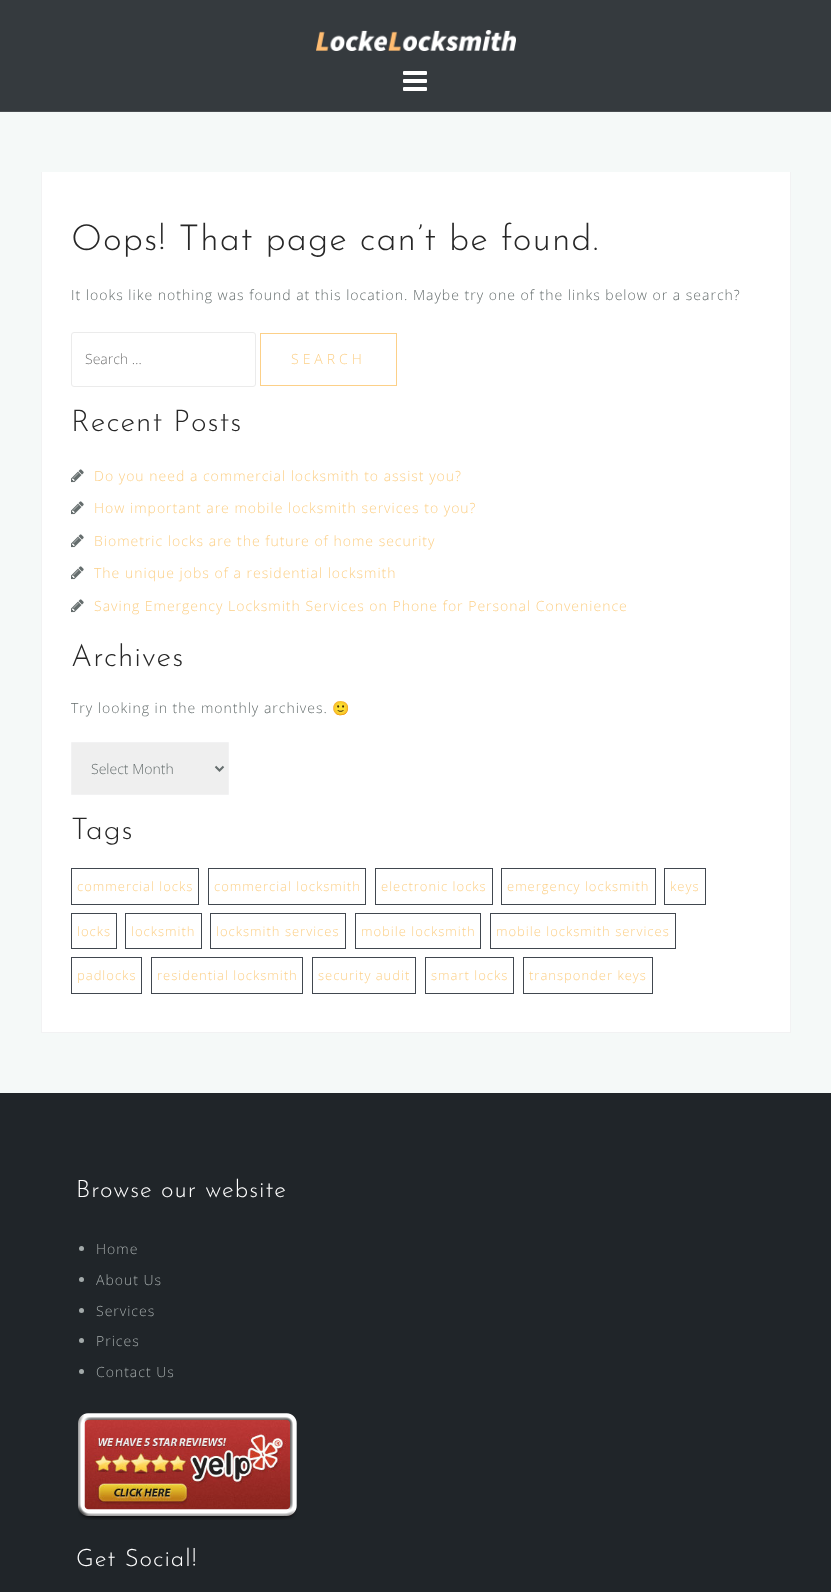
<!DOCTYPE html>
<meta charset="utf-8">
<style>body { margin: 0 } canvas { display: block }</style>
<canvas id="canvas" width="831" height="1592"></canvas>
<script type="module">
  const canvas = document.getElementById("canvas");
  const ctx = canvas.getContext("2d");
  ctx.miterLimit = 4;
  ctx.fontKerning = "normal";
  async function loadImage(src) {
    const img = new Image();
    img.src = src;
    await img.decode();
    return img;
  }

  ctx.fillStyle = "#f5f9f8";
  ctx.fillRect(0, 0, 831, 1592);
  ctx.fillStyle = "#353a3e";
  ctx.fillRect(0, 0, 831, 111);
  ctx.fillStyle = "#494e51";
  ctx.fillRect(0, 111, 831, 1);
  ctx.drawImage(await loadImage("img1.png"), 316, 30, 200, 21);
  ctx.drawImage(await loadImage("img2.png"), 403, 71, 24, 20);
  ctx.fillStyle = "#ffffff";
  ctx.fillRect(42, 172, 748, 860);
  ctx.fillStyle = "#f2f2f3";
  ctx.fillRect(790, 172, 1, 861);
  ctx.fillRect(41, 1032, 750, 1);
  ctx.fillRect(41, 172, 1, 861);
  ctx.letterSpacing = "1px";
  ctx.font = "100 36px Josefin Sans";
  ctx.fillStyle = "#272727";
  ctx.fillText("Oops! That page can’t be found.", 71, 250);
  ctx.font = "300 14px Open Sans";
  ctx.fillStyle = "#656d6d";
  ctx.fillText("It looks like nothing was found at this location. Maybe try one of the links below or a search?", 71, 300);
  ctx.beginPath();
  ctx.roundRect(71.5, 332.5, 184, 54, 2.5);
  ctx.strokeStyle = "#ebebeb";
  ctx.stroke();
  ctx.letterSpacing = "0px";
  ctx.fillStyle = "#757575";
  ctx.fillText("Search …", 85, 364);
  ctx.strokeStyle = "#fcd088";
  ctx.strokeRect(260.5, 333.5, 136, 52);
  ctx.letterSpacing = "4px";
  ctx.fillStyle = "#fcd088";
  ctx.fillText("SEARCH", 291, 364);
  ctx.letterSpacing = "1px";
  ctx.font = "100 30px Josefin Sans";
  ctx.fillStyle = "#272727";
  ctx.fillText("Recent Posts", 71, 431);
  ctx.drawImage(await loadImage("img3.png"), 71, 469, 13, 14);
  ctx.font = "300 14px Open Sans";
  ctx.fillStyle = "#fcd088";
  ctx.fillText("Do you need a commercial locksmith to assist you?", 94, 481);
  ctx.drawImage(await loadImage("img3.png"), 71, 501, 13, 14);
  ctx.fillText("How important are mobile locksmith services to you?", 94, 513);
  ctx.drawImage(await loadImage("img3.png"), 71, 534, 13, 14);
  ctx.fillText("Biometric locks are the future of home security", 94, 546);
  ctx.drawImage(await loadImage("img3.png"), 71, 566, 13, 14);
  ctx.fillText("The unique jobs of a residential locksmith", 94, 578);
  ctx.drawImage(await loadImage("img3.png"), 71, 599, 13, 14);
  ctx.fillText("Saving Emergency Locksmith Services on Phone for Personal Convenience", 94, 611);
  ctx.font = "100 30px Josefin Sans";
  ctx.fillStyle = "#272727";
  ctx.fillText("Archives", 71, 666);
  ctx.font = "300 14px Open Sans";
  ctx.fillStyle = "#656d6d";
  ctx.fillText("Try looking in the monthly archives.", 71, 713);
  ctx.font = "14px Noto Color Emoji";
  ctx.fillText("🙂", 332, 713);
  ctx.fillStyle = "#efefef";
  ctx.beginPath();
  ctx.rect(71.5, 742.5, 157, 52);
  ctx.fill();
  ctx.strokeStyle = "#f2f2f3";
  ctx.stroke();
  ctx.beginPath();
  ctx.moveTo(215.5, 766.5);
  ctx.lineTo(219.5, 770.5);
  ctx.lineTo(223.5, 766.5);
  ctx.strokeStyle = "#656d6d";
  ctx.lineWidth = 2;
  ctx.stroke();
  ctx.letterSpacing = "0px";
  ctx.font = "300 14px Open Sans";
  ctx.fillStyle = "#656d6d";
  ctx.fillText("Select Month", 91, 774);
  ctx.letterSpacing = "1px";
  ctx.font = "100 30px Josefin Sans";
  ctx.fillStyle = "#272727";
  ctx.fillText("Tags", 71, 839);
  ctx.strokeStyle = "#41474f";
  ctx.lineWidth = 1;
  ctx.strokeRect(71.5, 868.5, 127, 36);
  ctx.font = "300 13px Open Sans";
  ctx.fillStyle = "#fcd088";
  ctx.fillText("commercial locks", 77, 891);
  ctx.strokeRect(208.5, 868.5, 157, 36);
  ctx.fillText("commercial locksmith", 214, 891);
  ctx.strokeRect(375.5, 868.5, 117, 36);
  ctx.fillText("electronic locks", 381, 891);
  ctx.strokeRect(501.5, 868.5, 154, 36);
  ctx.fillText("emergency locksmith", 507, 891);
  ctx.strokeRect(664.5, 868.5, 41, 36);
  ctx.fillText("keys", 670, 891);
  ctx.strokeRect(71.5, 913.5, 45, 35);
  ctx.fillText("locks", 77, 936);
  ctx.strokeRect(125.5, 913.5, 76, 35);
  ctx.fillText("locksmith", 131, 936);
  ctx.strokeRect(210.5, 913.5, 135, 35);
  ctx.fillText("locksmith services", 216, 936);
  ctx.strokeRect(355.5, 913.5, 125, 35);
  ctx.fillText("mobile locksmith", 361, 936);
  ctx.strokeRect(490.5, 913.5, 185, 35);
  ctx.fillText("mobile locksmith services", 496, 936);
  ctx.strokeRect(71.5, 957.5, 70, 36);
  ctx.fillText("padlocks", 77, 980);
  ctx.strokeRect(151.5, 957.5, 151, 36);
  ctx.fillText("residential locksmith", 157, 980);
  ctx.strokeRect(312.5, 957.5, 103, 36);
  ctx.fillText("security audit", 318, 980);
  ctx.strokeRect(425.5, 957.5, 88, 36);
  ctx.fillText("smart locks", 431, 980);
  ctx.strokeRect(523.5, 957.5, 129, 36);
  ctx.fillText("transponder keys", 529, 980);
  ctx.fillStyle = "#202529";
  ctx.fillRect(0, 1093, 831, 499);
  ctx.font = "100 24px Josefin Sans";
  ctx.fillStyle = "#ffffff";
  ctx.fillText("Browse our website", 76, 1197);
  ctx.fillStyle = "#a3aaaa";
  ctx.beginPath();
  ctx.arc(81.5, 1248.5, 2.5, 0, Math.PI * 2);
  ctx.fill();
  ctx.font = "300 14px Open Sans";
  ctx.fillText("Home", 96, 1254);
  ctx.beginPath();
  ctx.arc(81.5, 1279.5, 2.5, 0, Math.PI * 2);
  ctx.fill();
  ctx.fillText("About Us", 96, 1285);
  ctx.beginPath();
  ctx.arc(81.5, 1310.5, 2.5, 0, Math.PI * 2);
  ctx.fill();
  ctx.fillText("Services", 96, 1316);
  ctx.beginPath();
  ctx.arc(81.5, 1340.5, 2.5, 0, Math.PI * 2);
  ctx.fill();
  ctx.fillText("Prices", 96, 1346);
  ctx.beginPath();
  ctx.arc(81.5, 1371.5, 2.5, 0, Math.PI * 2);
  ctx.fill();
  ctx.fillText("Contact Us", 96, 1377);
  ctx.drawImage(await loadImage("img4.png"), 78, 1413, 219, 107);
  ctx.font = "100 24px Josefin Sans";
  ctx.fillStyle = "#ffffff";
  ctx.fillText("Get Social!", 76, 1566);
</script>
